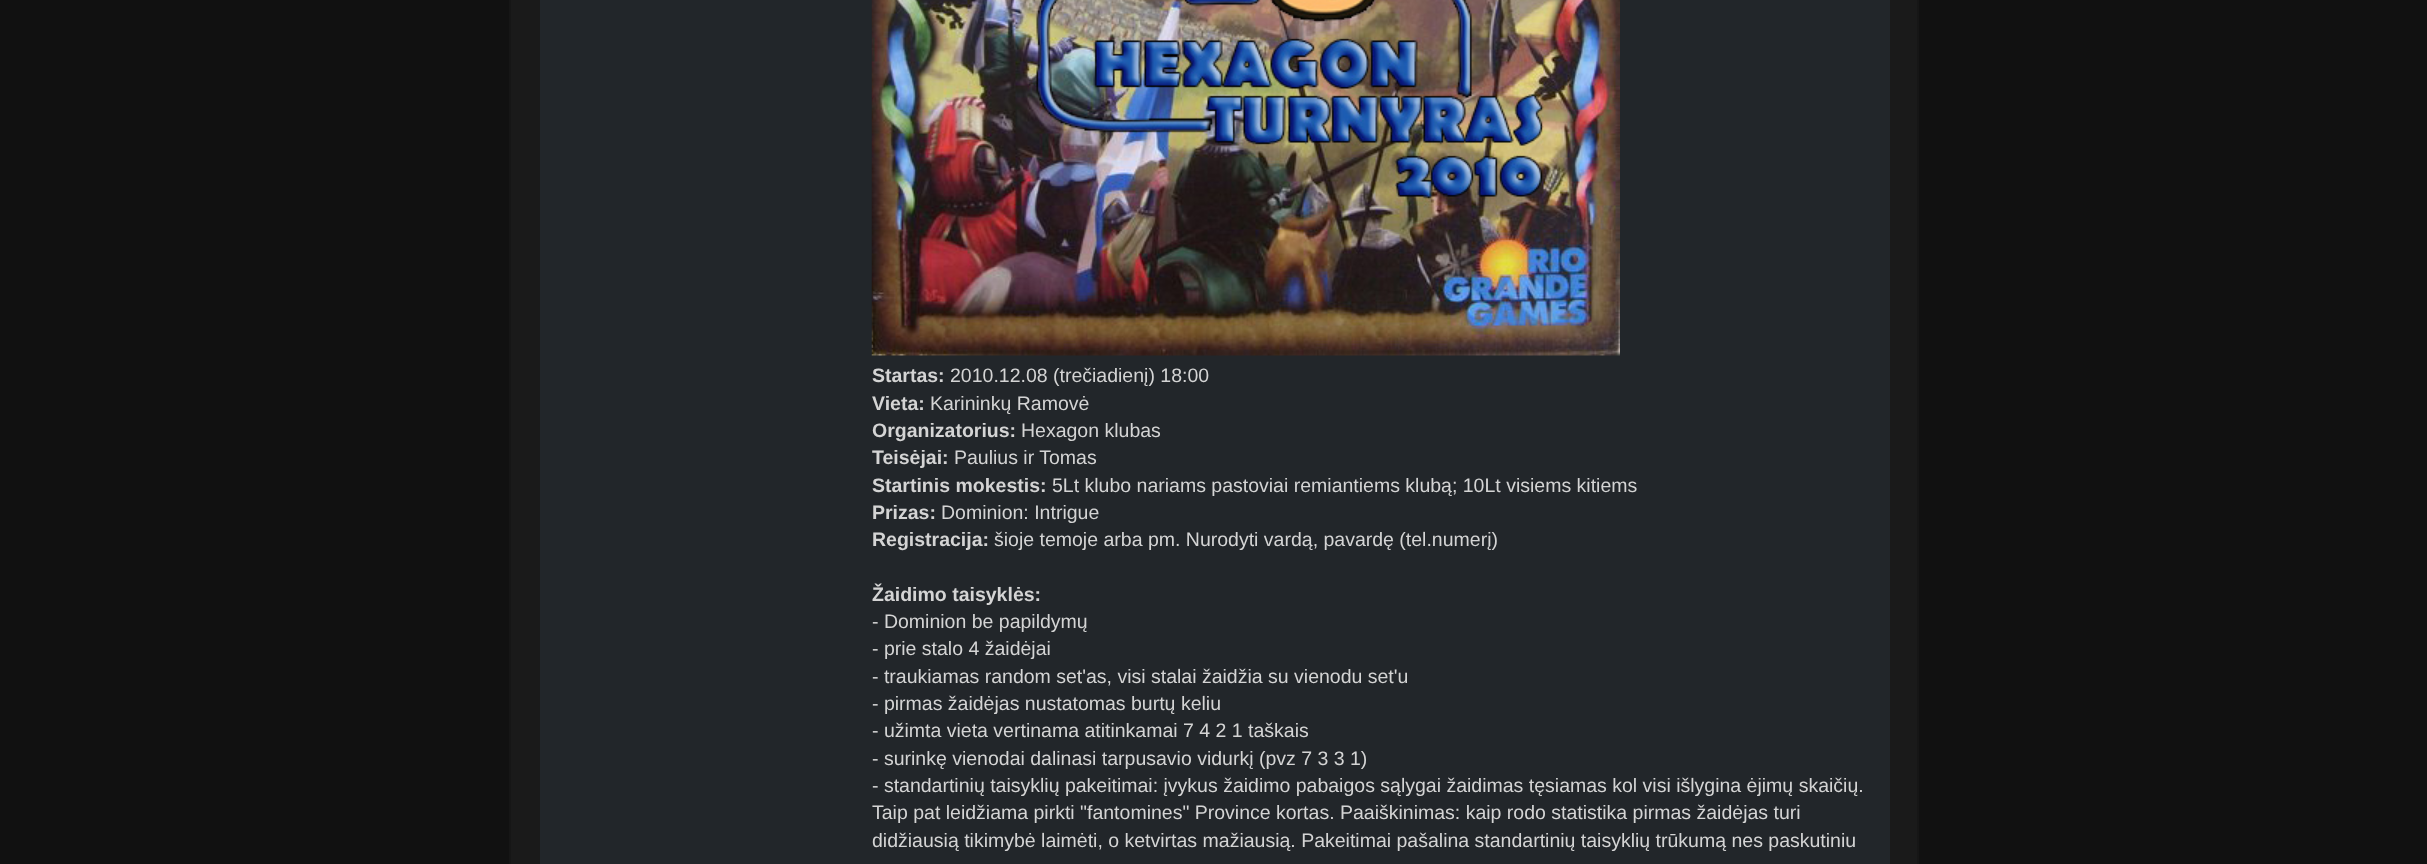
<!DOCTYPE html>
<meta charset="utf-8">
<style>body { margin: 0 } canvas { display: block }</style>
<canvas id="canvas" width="2427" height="864"></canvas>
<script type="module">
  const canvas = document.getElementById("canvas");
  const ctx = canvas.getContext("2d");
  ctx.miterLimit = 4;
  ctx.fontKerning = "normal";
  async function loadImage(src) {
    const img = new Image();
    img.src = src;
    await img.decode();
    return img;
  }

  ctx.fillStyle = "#111111";
  ctx.fillRect(0, 0, 2427, 864);
  ctx.fillStyle = "#1a1a1a";
  ctx.fillRect(511, 0, 1406, 864);
  ctx.fillStyle = "#161616";
  ctx.fillRect(1917, 0, 2, 864);
  ctx.fillRect(509, 0, 2, 864);
  ctx.fillStyle = "#22262a";
  ctx.fillRect(540, 0, 1350, 864);
  ctx.drawImage(await loadImage("img1.png"), 871, 0, 749, 356);
  ctx.font = "bold 19.5px Liberation Sans";
  ctx.fillStyle = "#d4d4d4";
  ctx.fillText("Startas:", 872, 382);
  ctx.font = "19.5px Liberation Sans";
  ctx.fillText("2010.12.08 (trečiadienį) 18:00", 950, 382);
  ctx.font = "bold 19.5px Liberation Sans";
  ctx.fillText("Vieta:", 872, 410);
  ctx.font = "19.5px Liberation Sans";
  ctx.fillText("Karininkų Ramovė", 930, 410);
  ctx.font = "bold 19.5px Liberation Sans";
  ctx.fillText("Organizatorius:", 872, 437);
  ctx.font = "19.5px Liberation Sans";
  ctx.fillText("Hexagon klubas", 1021, 437);
  ctx.font = "bold 19.5px Liberation Sans";
  ctx.fillText("Teisėjai:", 872, 464);
  ctx.font = "19.5px Liberation Sans";
  ctx.fillText("Paulius ir Tomas", 954, 464);
  ctx.font = "bold 19.5px Liberation Sans";
  ctx.fillText("Startinis mokestis:", 872, 492);
  ctx.font = "19.5px Liberation Sans";
  ctx.fillText("5Lt klubo nariams pastoviai remiantiems klubą; 10Lt visiems kitiems", 1052, 492);
  ctx.font = "bold 19.5px Liberation Sans";
  ctx.fillText("Prizas:", 872, 519);
  ctx.font = "19.5px Liberation Sans";
  ctx.fillText("Dominion: Intrigue", 941, 519);
  ctx.font = "bold 19.5px Liberation Sans";
  ctx.fillText("Registracija:", 872, 546);
  ctx.font = "19.5px Liberation Sans";
  ctx.fillText("šioje temoje arba pm. Nurodyti vardą, pavardę (tel.numerį)", 994, 546);
  ctx.font = "bold 19.5px Liberation Sans";
  ctx.fillText("Žaidimo taisyklės:", 872, 601);
  ctx.font = "19.5px Liberation Sans";
  ctx.fillText("- Dominion be papildymų", 872, 628);
  ctx.fillText("- prie stalo 4 žaidėjai", 872, 655);
  ctx.fillText("- traukiamas random set'as, visi stalai žaidžia su vienodu set'u", 872, 683);
  ctx.fillText("- pirmas žaidėjas nustatomas burtų keliu", 872, 710);
  ctx.fillText("- užimta vieta vertinama atitinkamai 7 4 2 1 taškais", 872, 737);
  ctx.fillText("- surinkę vienodai dalinasi tarpusavio vidurkį (pvz 7 3 3 1)", 872, 765);
  ctx.fillText("- standartinių taisyklių pakeitimai: įvykus žaidimo pabaigos sąlygai žaidimas tęsiamas kol visi išlygina ėjimų skaičių.", 872, 792);
  ctx.fillText("Taip pat leidžiama pirkti \"fantomines\" Province kortas. Paaiškinimas: kaip rodo statistika pirmas žaidėjas turi", 872, 819);
  ctx.fillText("didžiausią tikimybė laimėti, o ketvirtas mažiausią. Pakeitimai pašalina standartinių taisyklių trūkumą nes paskutiniu", 872, 847);
</script>
